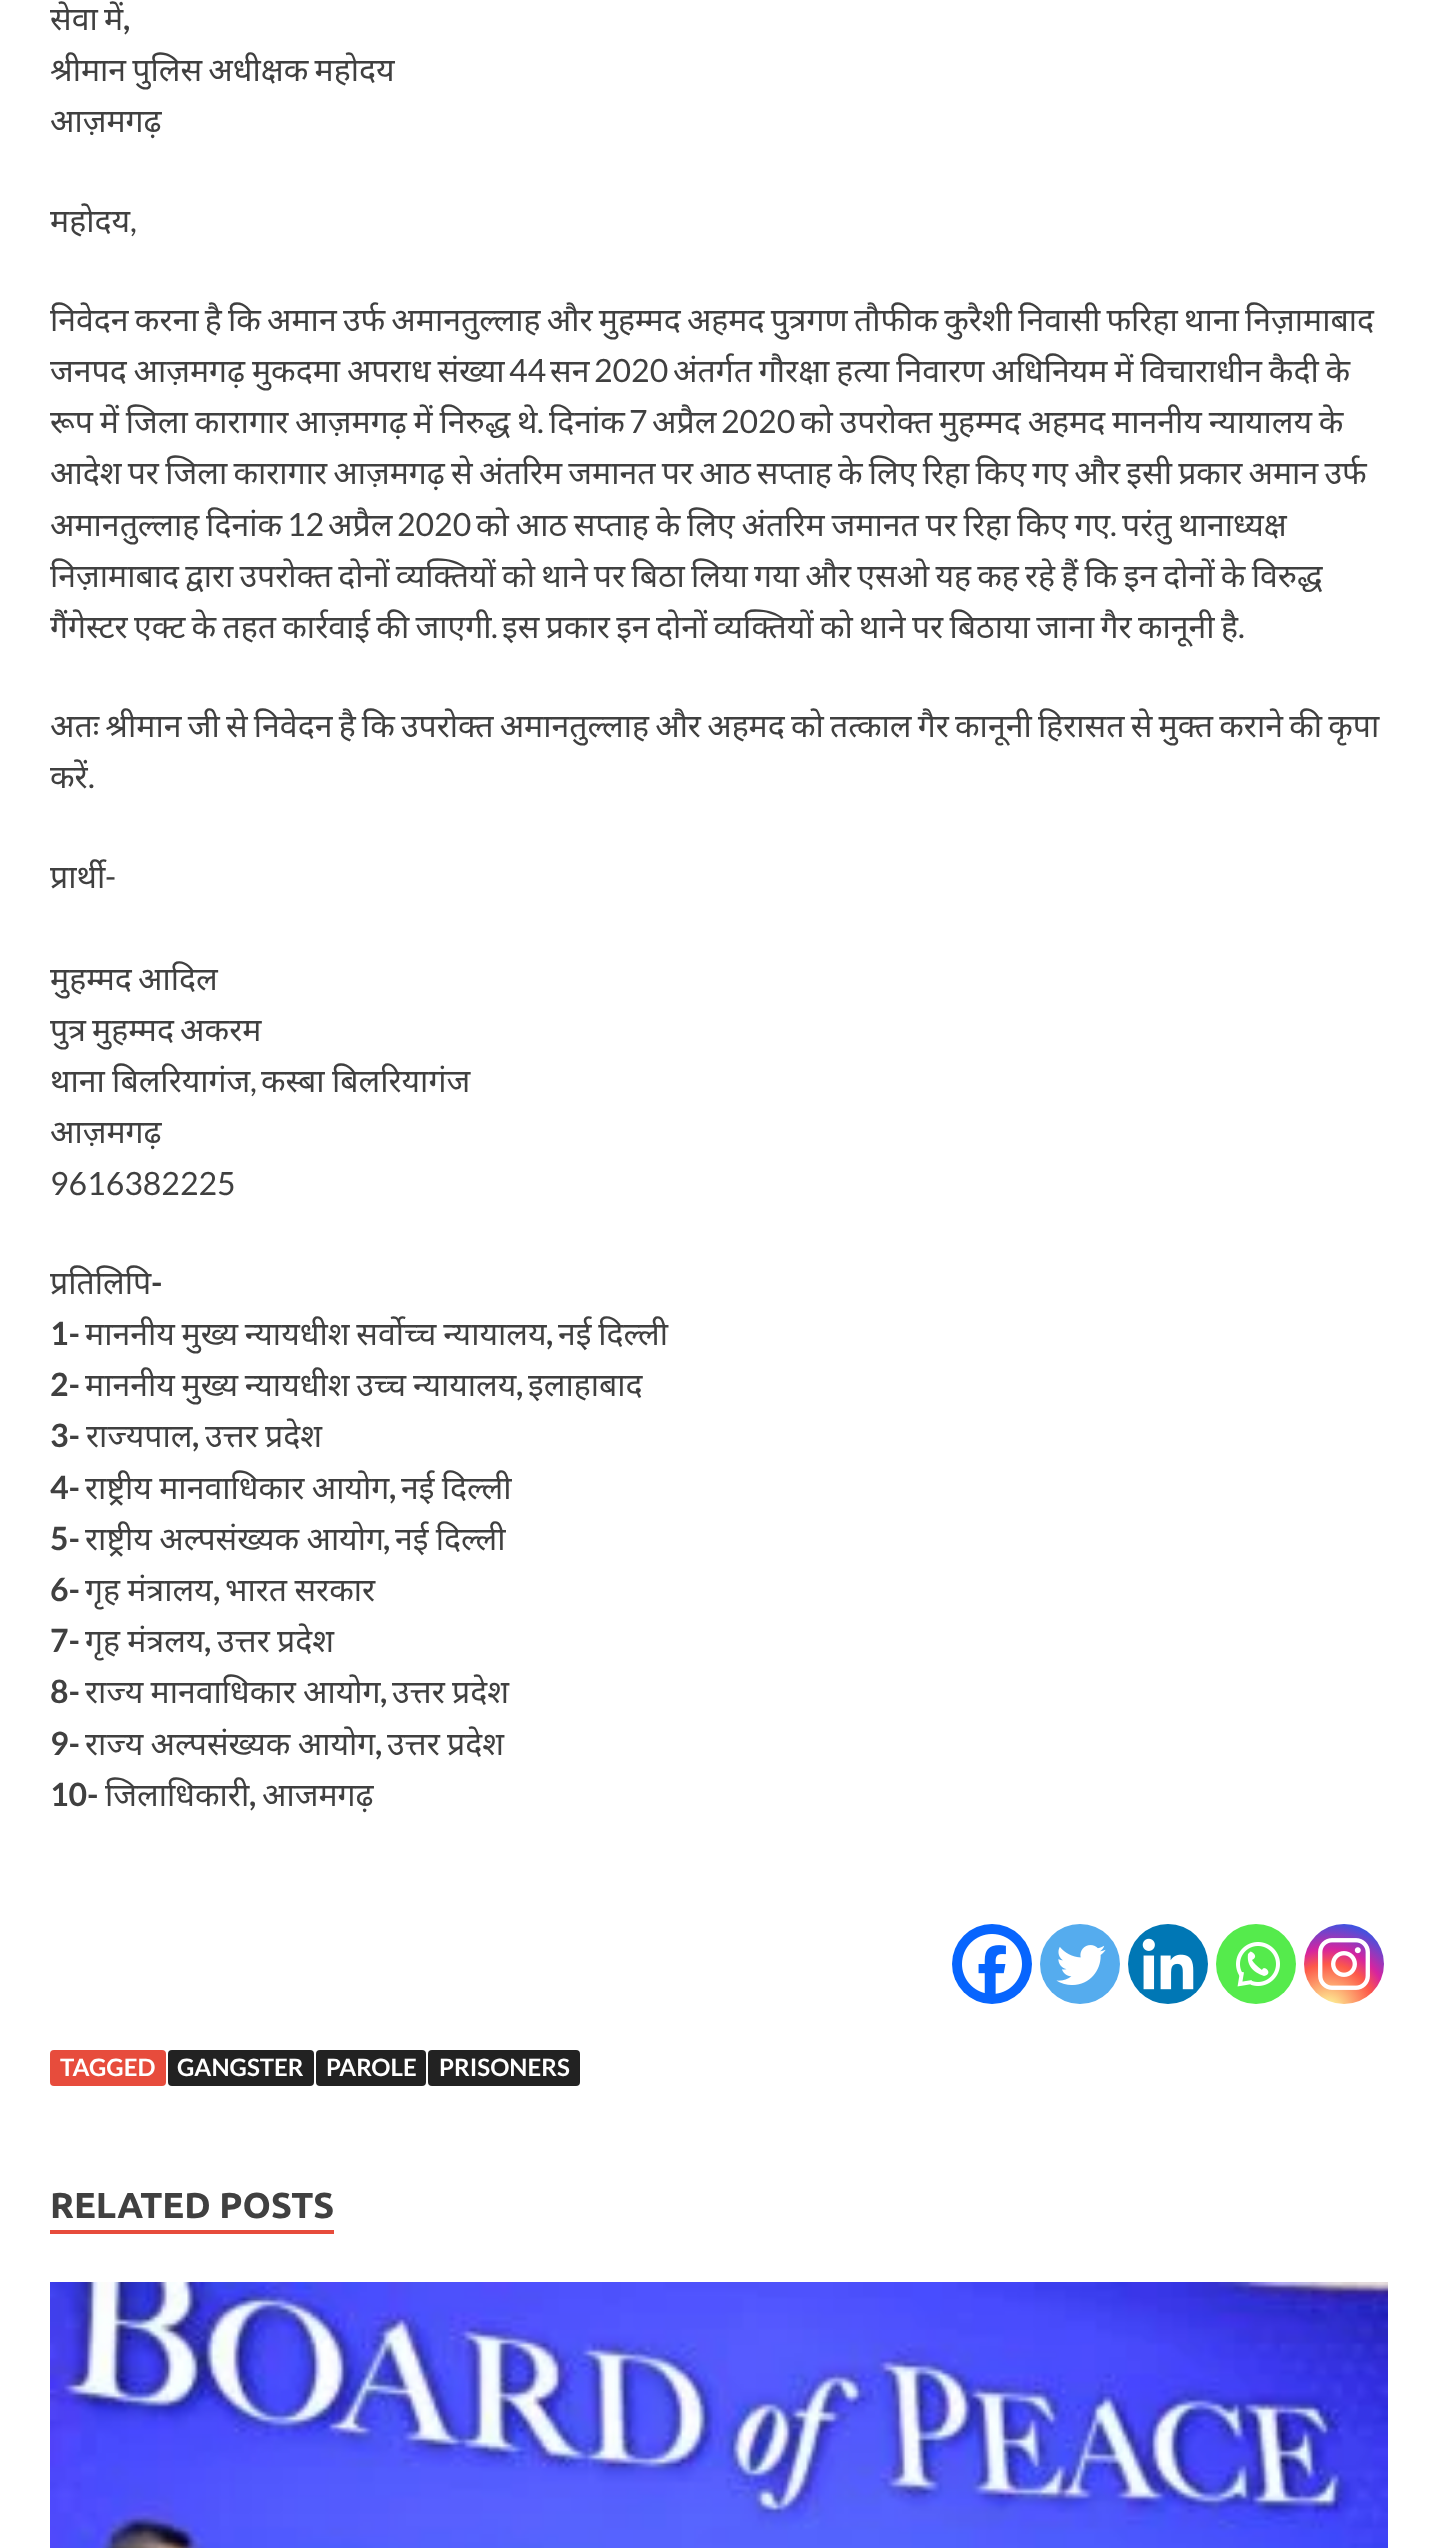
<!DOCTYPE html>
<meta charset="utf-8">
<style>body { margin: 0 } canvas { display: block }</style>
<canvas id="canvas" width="1437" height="2548"></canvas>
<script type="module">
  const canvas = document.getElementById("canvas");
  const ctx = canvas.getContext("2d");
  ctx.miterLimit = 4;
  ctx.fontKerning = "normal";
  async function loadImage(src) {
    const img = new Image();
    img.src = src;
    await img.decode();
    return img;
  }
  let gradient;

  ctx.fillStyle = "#ffffff";
  ctx.fillRect(0, 0, 1437, 2548);
  ctx.wordSpacing = "-2.1px";
  ctx.font = "32px Noto Sans";
  ctx.fillStyle = "#404040";
  ctx.fillText("सेवा में", 50, 30);
  ctx.wordSpacing = "0px";
  ctx.font = "bold 32px Lato";
  ctx.fillText(",", 123, 30);
  ctx.wordSpacing = "-2.1px";
  ctx.font = "32px Noto Sans";
  ctx.fillText("श्रीमान पुलिस अधीक्षक महोदय", 50, 81);
  ctx.wordSpacing = "0px";
  ctx.fillText("आज़मगढ़", 50, 132);
  ctx.fillText("महोदय", 50, 232);
  ctx.font = "32px Lato";
  ctx.fillText(",", 130, 232);
  ctx.wordSpacing = "-2.1px";
  ctx.font = "32px Noto Sans";
  ctx.fillText("निवेदन करना है कि अमान उर्फ अमानतुल्लाह और मुहम्मद अहमद पुत्रगण तौफीक कुरैशी निवासी फरिहा थाना निज़ामाबाद", 50, 331);
  ctx.wordSpacing = "-1.5px";
  ctx.fillText("जनपद आज़मगढ़ मुकदमा अपराध संख्या", 50, 382);
  ctx.wordSpacing = "0px";
  ctx.font = "32px Lato";
  ctx.fillText("44", 509, 382);
  ctx.font = "32px Noto Sans";
  ctx.fillText("सन", 550, 382);
  ctx.font = "32px Lato";
  ctx.fillText("2020", 594, 382);
  ctx.wordSpacing = "-1.5px";
  ctx.font = "32px Noto Sans";
  ctx.fillText("अंतर्गत गौरक्षा हत्या निवारण अधिनियम में विचाराधीन कैदी के", 673, 382);
  ctx.fillText("रूप में जिला कारागार आज़मगढ़ में निरुद्ध थे", 50, 433);
  ctx.wordSpacing = "0px";
  ctx.font = "32px Lato";
  ctx.fillText(".", 537, 433);
  ctx.font = "32px Noto Sans";
  ctx.fillText("दिनांक", 549, 433);
  ctx.font = "32px Lato";
  ctx.fillText("7", 629, 433);
  ctx.font = "32px Noto Sans";
  ctx.fillText("अप्रैल", 652, 433);
  ctx.font = "32px Lato";
  ctx.fillText("2020", 721, 433);
  ctx.wordSpacing = "-1.5px";
  ctx.font = "32px Noto Sans";
  ctx.fillText("को उपरोक्त मुहम्मद अहमद माननीय न्यायालय के", 800, 433);
  ctx.wordSpacing = "-2.1px";
  ctx.fillText("आदेश पर जिला कारागार आज़मगढ़ से अंतरिम जमानत पर आठ सप्ताह के लिए रिहा किए गए और इसी प्रकार अमान उर्फ", 50, 484);
  ctx.wordSpacing = "-1.5px";
  ctx.fillText("अमानतुल्लाह दिनांक", 50, 536);
  ctx.wordSpacing = "0px";
  ctx.font = "32px Lato";
  ctx.fillText("12", 287, 536);
  ctx.font = "32px Noto Sans";
  ctx.fillText("अप्रैल", 328, 536);
  ctx.font = "32px Lato";
  ctx.fillText("2020", 397, 536);
  ctx.wordSpacing = "-1.5px";
  ctx.font = "32px Noto Sans";
  ctx.fillText("को आठ सप्ताह के लिए अंतरिम जमानत पर रिहा किए गए", 476, 536);
  ctx.wordSpacing = "0px";
  ctx.font = "32px Lato";
  ctx.fillText(".", 1110, 536);
  ctx.wordSpacing = "-1.5px";
  ctx.font = "32px Noto Sans";
  ctx.fillText("परंतु थानाध्यक्ष", 1122, 536);
  ctx.wordSpacing = "-2.1px";
  ctx.fillText("निज़ामाबाद द्वारा उपरोक्त दोनों व्यक्तियों को थाने पर बिठा लिया गया और एसओ यह कह रहे हैं कि इन दोनों के विरुद्ध", 50, 587);
  ctx.wordSpacing = "-2px";
  ctx.fillText("गैंगेस्टर एक्ट के तहत कार्रवाई की जाएगी", 50, 638);
  ctx.wordSpacing = "0px";
  ctx.font = "32px Lato";
  ctx.fillText(".", 491, 638);
  ctx.wordSpacing = "-2px";
  ctx.font = "32px Noto Sans";
  ctx.fillText("इस प्रकार इन दोनों व्यक्तियों को थाने पर बिठाया जाना गैर कानूनी है", 502, 638);
  ctx.wordSpacing = "0px";
  ctx.font = "32px Lato";
  ctx.fillText(".", 1238, 638);
  ctx.wordSpacing = "-2.1px";
  ctx.font = "32px Noto Sans";
  ctx.fillText("अतः श्रीमान जी से निवेदन है कि उपरोक्त अमानतुल्लाह और अहमद को तत्काल गैर कानूनी हिरासत से मुक्त कराने की कृपा", 50, 737);
  ctx.wordSpacing = "0px";
  ctx.fillText("करें", 50, 788);
  ctx.font = "32px Lato";
  ctx.fillText(".", 88, 788);
  ctx.font = "32px Noto Sans";
  ctx.fillText("प्रार्थी", 50, 888);
  ctx.font = "32px Lato";
  ctx.fillText("-", 105, 888);
  ctx.wordSpacing = "-2.1px";
  ctx.font = "32px Noto Sans";
  ctx.fillText("मुहम्मद आदिल", 50, 990);
  ctx.fillText("पुत्र मुहम्मद अकरम", 50, 1041);
  ctx.wordSpacing = "-1px";
  ctx.fillText("थाना बिलरियागंज", 50, 1092);
  ctx.wordSpacing = "0px";
  ctx.font = "32px Lato";
  ctx.fillText(",", 250, 1092);
  ctx.wordSpacing = "-1px";
  ctx.font = "32px Noto Sans";
  ctx.fillText("कस्बा बिलरियागंज", 261, 1092);
  ctx.wordSpacing = "0px";
  ctx.fillText("आज़मगढ़", 50, 1143);
  ctx.font = "32px Lato";
  ctx.fillText("9616382225", 50, 1195);
  ctx.font = "32px Noto Sans";
  ctx.fillText("प्रतिलिपि", 50, 1294);
  ctx.font = "bold 32px Lato";
  ctx.fillText("-", 151, 1294);
  ctx.fillText("1-", 50, 1345);
  ctx.wordSpacing = "-1.5px";
  ctx.font = "32px Noto Sans";
  ctx.fillText("माननीय मुख्य न्यायधीश सर्वोच्च न्यायालय", 85, 1345);
  ctx.wordSpacing = "0px";
  ctx.font = "bold 32px Lato";
  ctx.fillText(",", 546, 1345);
  ctx.wordSpacing = "-1.5px";
  ctx.font = "32px Noto Sans";
  ctx.fillText("नई दिल्ली", 558, 1345);
  ctx.wordSpacing = "0px";
  ctx.font = "bold 32px Lato";
  ctx.fillText("2-", 50, 1396);
  ctx.wordSpacing = "-1.5px";
  ctx.font = "32px Noto Sans";
  ctx.fillText("माननीय मुख्य न्यायधीश उच्च न्यायालय", 85, 1396);
  ctx.wordSpacing = "0px";
  ctx.font = "bold 32px Lato";
  ctx.fillText(",", 516, 1396);
  ctx.font = "32px Noto Sans";
  ctx.fillText("इलाहाबाद", 528, 1396);
  ctx.font = "bold 32px Lato";
  ctx.fillText("3-", 50, 1447);
  ctx.font = "32px Noto Sans";
  ctx.fillText("राज्यपाल", 86, 1447);
  ctx.font = "bold 32px Lato";
  ctx.fillText(",", 192, 1447);
  ctx.wordSpacing = "-1px";
  ctx.font = "32px Noto Sans";
  ctx.fillText("उत्तर प्रदेश", 205, 1447);
  ctx.wordSpacing = "0px";
  ctx.font = "bold 32px Lato";
  ctx.fillText("4-", 50, 1499);
  ctx.wordSpacing = "-1px";
  ctx.font = "32px Noto Sans";
  ctx.fillText("राष्ट्रीय मानवाधिकार आयोग", 85, 1499);
  ctx.wordSpacing = "0px";
  ctx.font = "bold 32px Lato";
  ctx.fillText(",", 389, 1499);
  ctx.wordSpacing = "-1px";
  ctx.font = "32px Noto Sans";
  ctx.fillText("नई दिल्ली", 401, 1499);
  ctx.wordSpacing = "0px";
  ctx.font = "bold 32px Lato";
  ctx.fillText("5-", 50, 1550);
  ctx.wordSpacing = "-1px";
  ctx.font = "32px Noto Sans";
  ctx.fillText("राष्ट्रीय अल्पसंख्यक आयोग", 85, 1550);
  ctx.wordSpacing = "0px";
  ctx.font = "bold 32px Lato";
  ctx.fillText(",", 383, 1550);
  ctx.wordSpacing = "-1px";
  ctx.font = "32px Noto Sans";
  ctx.fillText("नई दिल्ली", 395, 1550);
  ctx.wordSpacing = "0px";
  ctx.font = "bold 32px Lato";
  ctx.fillText("6-", 50, 1601);
  ctx.wordSpacing = "-1px";
  ctx.font = "32px Noto Sans";
  ctx.fillText("गृह मंत्रालय", 85, 1601);
  ctx.wordSpacing = "0px";
  ctx.font = "bold 32px Lato";
  ctx.fillText(",", 213, 1601);
  ctx.wordSpacing = "-1px";
  ctx.font = "32px Noto Sans";
  ctx.fillText("भारत सरकार", 225, 1601);
  ctx.wordSpacing = "0px";
  ctx.font = "bold 32px Lato";
  ctx.fillText("7-", 50, 1652);
  ctx.wordSpacing = "-1px";
  ctx.font = "32px Noto Sans";
  ctx.fillText("गृह मंत्रलय", 85, 1652);
  ctx.wordSpacing = "0px";
  ctx.font = "bold 32px Lato";
  ctx.fillText(",", 204, 1652);
  ctx.wordSpacing = "-1px";
  ctx.font = "32px Noto Sans";
  ctx.fillText("उत्तर प्रदेश", 217, 1652);
  ctx.wordSpacing = "0px";
  ctx.font = "bold 32px Lato";
  ctx.fillText("8-", 50, 1703);
  ctx.wordSpacing = "-1px";
  ctx.font = "32px Noto Sans";
  ctx.fillText("राज्य मानवाधिकार आयोग", 85, 1703);
  ctx.wordSpacing = "0px";
  ctx.font = "bold 32px Lato";
  ctx.fillText(",", 380, 1703);
  ctx.wordSpacing = "-1px";
  ctx.font = "32px Noto Sans";
  ctx.fillText("उत्तर प्रदेश", 392, 1703);
  ctx.wordSpacing = "0px";
  ctx.font = "bold 32px Lato";
  ctx.fillText("9-", 50, 1755);
  ctx.wordSpacing = "-1px";
  ctx.font = "32px Noto Sans";
  ctx.fillText("राज्य अल्पसंख्यक आयोग", 85, 1755);
  ctx.wordSpacing = "0px";
  ctx.font = "bold 32px Lato";
  ctx.fillText(",", 375, 1755);
  ctx.wordSpacing = "-1px";
  ctx.font = "32px Noto Sans";
  ctx.fillText("उत्तर प्रदेश", 387, 1755);
  ctx.wordSpacing = "0px";
  ctx.font = "bold 32px Lato";
  ctx.fillText("10-", 50, 1806);
  ctx.font = "32px Noto Sans";
  ctx.fillText("जिलाधिकारी", 105, 1806);
  ctx.font = "bold 32px Lato";
  ctx.fillText(",", 249, 1806);
  ctx.font = "32px Noto Sans";
  ctx.fillText("आजमगढ़", 262, 1806);
  ctx.fillStyle = "#0765fe";
  ctx.beginPath();
  ctx.arc(992, 1964, 40, 0, Math.PI * 2);
  ctx.fill();
  ctx.drawImage(await loadImage("img1.png"), 962, 1934, 60, 60);
  ctx.fillStyle = "#55acee";
  ctx.beginPath();
  ctx.arc(1080, 1964, 40, 0, Math.PI * 2);
  ctx.fill();
  ctx.drawImage(await loadImage("img2.png"), 1056, 1945, 50, 40);
  ctx.fillStyle = "#0077b5";
  ctx.beginPath();
  ctx.arc(1168, 1964, 40, 0, Math.PI * 2);
  ctx.fill();
  ctx.drawImage(await loadImage("img3.png"), 1142, 1938, 52, 52);
  ctx.fillStyle = "#55eb4c";
  ctx.beginPath();
  ctx.arc(1256, 1964, 40, 0, Math.PI * 2);
  ctx.fill();
  ctx.drawImage(await loadImage("img4.png"), 1236, 1942, 44, 45);
  gradient = ctx.createRadialGradient(1328, 2010, 0, 1328, 2010, 102);
  gradient.addColorStop(0, "#fdf497");
  gradient.addColorStop(0.05, "#fdf497");
  gradient.addColorStop(0.45, "#fd5949");
  gradient.addColorStop(0.6, "#d6249f");
  gradient.addColorStop(0.9, "#285aeb");
  ctx.fillStyle = gradient;
  ctx.beginPath();
  ctx.arc(1344, 1964, 40, 0, Math.PI * 2);
  ctx.fill();
  ctx.drawImage(await loadImage("img5.png"), 1318, 1938, 52, 52);
  ctx.fillStyle = "#e74c3c";
  ctx.beginPath();
  ctx.roundRect(50, 2050, 116, 36, 4);
  ctx.fill();
  ctx.font = "bold 24px Lato";
  ctx.fillStyle = "#ffffff";
  ctx.fillText("TAGGED", 60, 2076);
  ctx.fillStyle = "#222222";
  ctx.beginPath();
  ctx.roundRect(168, 2050, 146, 36, 4);
  ctx.fill();
  ctx.fillStyle = "#ffffff";
  ctx.fillText("GANGSTER", 177, 2076);
  ctx.fillStyle = "#222222";
  ctx.beginPath();
  ctx.roundRect(316, 2050, 110, 36, 4);
  ctx.fill();
  ctx.fillStyle = "#ffffff";
  ctx.fillText("PAROLE", 326, 2076);
  ctx.fillStyle = "#222222";
  ctx.beginPath();
  ctx.roundRect(428, 2050, 152, 36, 4);
  ctx.fill();
  ctx.fillStyle = "#ffffff";
  ctx.fillText("PRISONERS", 439, 2076);
  ctx.fillStyle = "#e74c3c";
  ctx.fillRect(50, 2230, 284, 4);
  ctx.font = "bold 36px Ubuntu";
  ctx.fillStyle = "#404040";
  ctx.fillText("RELATED POSTS", 50, 2218);
  ctx.drawImage(await loadImage("img6.png"), 50, 2282, 1338, 266);
</script>
